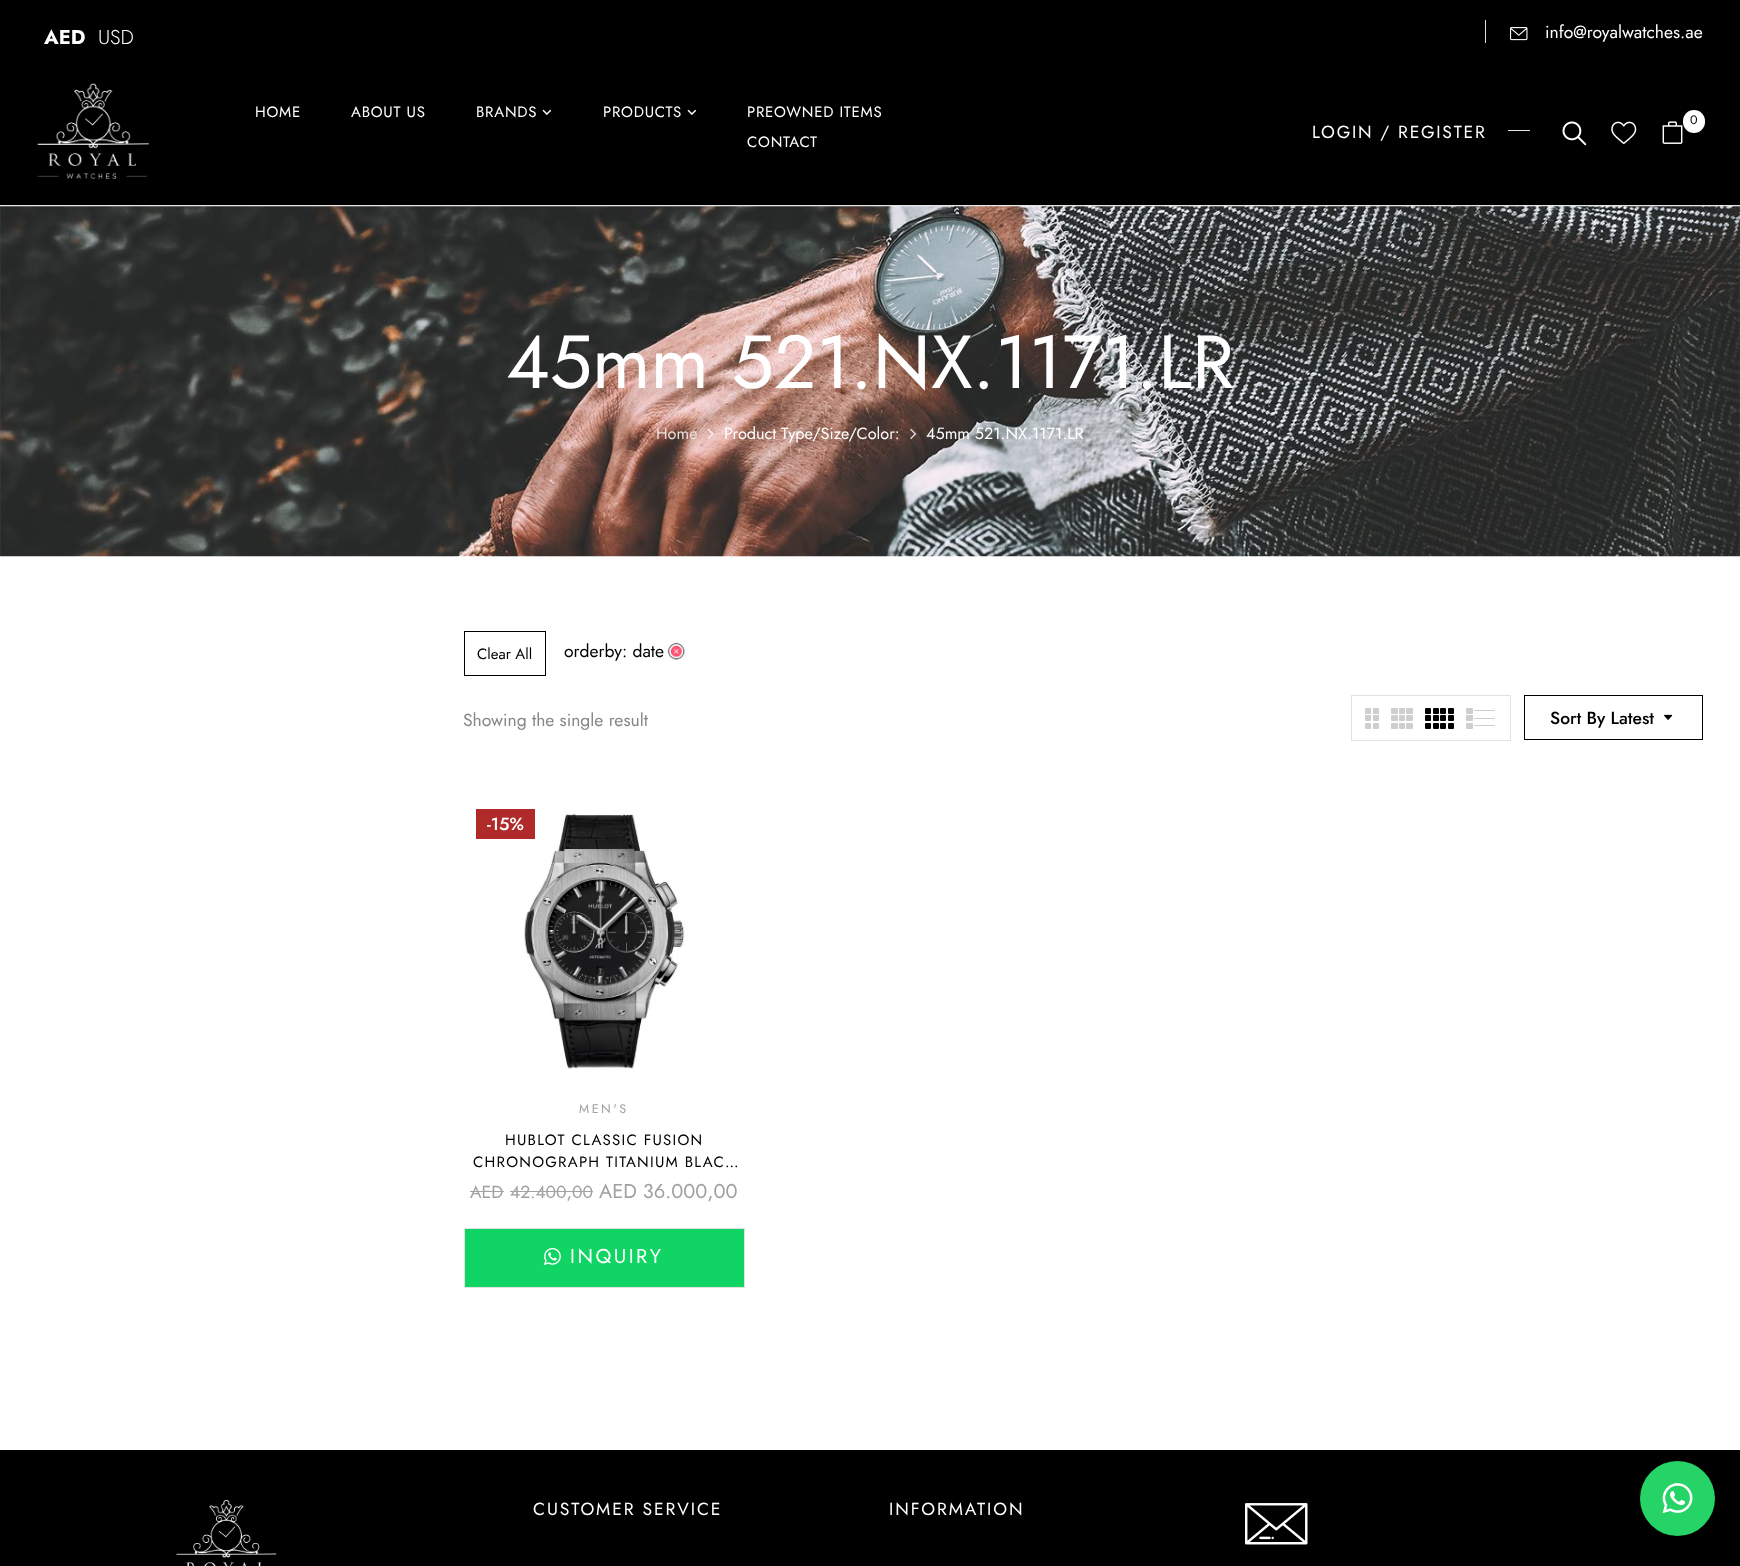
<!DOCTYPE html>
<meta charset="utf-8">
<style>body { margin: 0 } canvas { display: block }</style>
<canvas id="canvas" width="1740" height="1566"></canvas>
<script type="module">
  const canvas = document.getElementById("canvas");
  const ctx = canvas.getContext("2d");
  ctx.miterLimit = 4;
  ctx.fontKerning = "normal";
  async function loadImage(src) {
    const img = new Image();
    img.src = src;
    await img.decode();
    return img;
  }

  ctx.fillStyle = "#ffffff";
  ctx.fillRect(0, 0, 1740, 1566);
  ctx.fillStyle = "#000000";
  ctx.fillRect(0, 0, 1740, 205);
  ctx.font = "bold 20px Jost";
  ctx.fillStyle = "#ffffff";
  ctx.fillText("AED", 44, 44);
  ctx.font = "300 20px Jost";
  ctx.fillText("USD", 98, 44);
  ctx.fillStyle = "#e2e2e2";
  ctx.fillRect(1485, 20, 1, 23);
  ctx.drawImage(await loadImage("img1.png"), 1510, 27, 18, 14);
  ctx.font = "17.5px Jost";
  ctx.fillStyle = "#ffffff";
  ctx.fillText("info@royalwatches.ae", 1545, 38);
  ctx.fillStyle = "#e5e5e5";
  ctx.fillRect(0, 205, 1740, 1);
  ctx.drawImage(await loadImage("img2.png"), 37, 83, 112, 96);
  ctx.letterSpacing = "0.75px";
  ctx.font = "15px Jost";
  ctx.fillStyle = "#ffffff";
  ctx.fillText("HOME", 255, 117);
  ctx.fillText("ABOUT US", 351, 117);
  ctx.fillText("BRANDS", 476, 117);
  ctx.drawImage(await loadImage("img3.png"), 542, 109, 10, 6);
  ctx.fillText("PRODUCTS", 603, 117);
  ctx.drawImage(await loadImage("img3.png"), 687, 109, 10, 6);
  ctx.fillText("PREOWNED ITEMS", 747, 117);
  ctx.fillText("CONTACT", 747, 147);
  ctx.beginPath();
  ctx.roundRect(1683, 110, 22, 23, 11);
  ctx.fill();
  ctx.letterSpacing = "0px";
  ctx.font = "12.5px Jost";
  ctx.fillStyle = "#000000";
  ctx.fillText("0", 1690, 124);
  ctx.drawImage(await loadImage("img4.png"), 1662, 121, 21, 23);
  ctx.letterSpacing = "1.75px";
  ctx.font = "17.5px Jost";
  ctx.fillStyle = "#ffffff";
  ctx.fillText("LOGIN / REGISTER", 1312, 138);
  ctx.fillStyle = "#e6e6e6";
  ctx.fillRect(1508, 130, 22, 1);
  ctx.drawImage(await loadImage("img5.png"), 1562, 121, 25, 25);
  ctx.drawImage(await loadImage("img6.png"), 1611, 121, 26, 23);
  ctx.drawImage(await loadImage("img7.png"), 0, 206, 1740, 351);
  ctx.letterSpacing = "0px";
  ctx.font = "75px Jost";
  ctx.fillStyle = "#ffffff";
  ctx.fillText("45mm 521.NX.1171.LR", 506, 388);
  ctx.font = "16.25px Jost";
  ctx.fillStyle = "#e9e0dd";
  ctx.fillText("Home", 656, 439);
  ctx.drawImage(await loadImage("img8.png"), 707, 428, 7, 12);
  ctx.fillStyle = "#ffffff";
  ctx.fillText("Product Type/Size/Color:", 724, 439);
  ctx.drawImage(await loadImage("img9.png"), 910, 428, 7, 12);
  ctx.fillText("45mm 521.NX.1171.LR", 926, 439);
  ctx.strokeStyle = "#000000";
  ctx.strokeRect(464.5, 631.5, 81, 44);
  ctx.font = "15px Jost";
  ctx.fillStyle = "#000000";
  ctx.fillText("Clear All", 477, 659);
  ctx.font = "17.5px Jost";
  ctx.fillText("orderby: date", 564, 657);
  ctx.drawImage(await loadImage("img10.png"), 667, 642, 18, 18);
  ctx.fillStyle = "#868686";
  ctx.fillText("Showing the single result", 463, 726);
  ctx.strokeStyle = "#e1e1e1";
  ctx.strokeRect(1351.5, 695.5, 159, 45);
  ctx.fillStyle = "#cecece";
  ctx.beginPath();
  ctx.roundRect(1365, 708, 6, 6, 1);
  ctx.fill();
  ctx.beginPath();
  ctx.roundRect(1373, 708, 6, 6, 1);
  ctx.fill();
  ctx.beginPath();
  ctx.roundRect(1365, 715, 6, 6, 1);
  ctx.fill();
  ctx.beginPath();
  ctx.roundRect(1373, 715, 6, 6, 1);
  ctx.fill();
  ctx.beginPath();
  ctx.roundRect(1365, 723, 6, 6, 1);
  ctx.fill();
  ctx.beginPath();
  ctx.roundRect(1373, 723, 6, 6, 1);
  ctx.fill();
  ctx.beginPath();
  ctx.roundRect(1391, 708, 7, 6, 1);
  ctx.fill();
  ctx.beginPath();
  ctx.roundRect(1399, 708, 6, 6, 1);
  ctx.fill();
  ctx.beginPath();
  ctx.roundRect(1406, 708, 7, 6, 1);
  ctx.fill();
  ctx.beginPath();
  ctx.roundRect(1391, 715, 7, 6, 1);
  ctx.fill();
  ctx.beginPath();
  ctx.roundRect(1399, 715, 6, 6, 1);
  ctx.fill();
  ctx.beginPath();
  ctx.roundRect(1406, 715, 7, 6, 1);
  ctx.fill();
  ctx.beginPath();
  ctx.roundRect(1391, 723, 7, 6, 1);
  ctx.fill();
  ctx.beginPath();
  ctx.roundRect(1399, 723, 6, 6, 1);
  ctx.fill();
  ctx.beginPath();
  ctx.roundRect(1406, 723, 7, 6, 1);
  ctx.fill();
  ctx.fillStyle = "#000000";
  ctx.beginPath();
  ctx.roundRect(1425, 708, 6, 6, 1);
  ctx.fill();
  ctx.beginPath();
  ctx.roundRect(1433, 708, 6, 6, 1);
  ctx.fill();
  ctx.beginPath();
  ctx.roundRect(1440, 708, 6, 6, 1);
  ctx.fill();
  ctx.beginPath();
  ctx.roundRect(1448, 708, 6, 6, 1);
  ctx.fill();
  ctx.beginPath();
  ctx.roundRect(1425, 715, 6, 6, 1);
  ctx.fill();
  ctx.beginPath();
  ctx.roundRect(1433, 715, 6, 6, 1);
  ctx.fill();
  ctx.beginPath();
  ctx.roundRect(1440, 715, 6, 6, 1);
  ctx.fill();
  ctx.beginPath();
  ctx.roundRect(1448, 715, 6, 6, 1);
  ctx.fill();
  ctx.beginPath();
  ctx.roundRect(1425, 723, 6, 6, 1);
  ctx.fill();
  ctx.beginPath();
  ctx.roundRect(1433, 723, 6, 6, 1);
  ctx.fill();
  ctx.beginPath();
  ctx.roundRect(1440, 723, 6, 6, 1);
  ctx.fill();
  ctx.beginPath();
  ctx.roundRect(1448, 723, 6, 6, 1);
  ctx.fill();
  ctx.fillStyle = "#cecece";
  ctx.beginPath();
  ctx.roundRect(1466, 708, 7, 6, 1);
  ctx.fill();
  ctx.beginPath();
  ctx.roundRect(1474, 710, 21, 1, 0.5);
  ctx.fill();
  ctx.beginPath();
  ctx.roundRect(1466, 715, 7, 6, 1);
  ctx.fill();
  ctx.beginPath();
  ctx.roundRect(1474, 718, 21, 1, 0.5);
  ctx.fill();
  ctx.beginPath();
  ctx.roundRect(1466, 723, 7, 6, 1);
  ctx.fill();
  ctx.beginPath();
  ctx.roundRect(1474, 725, 21, 1, 0.5);
  ctx.fill();
  ctx.strokeStyle = "#000000";
  ctx.strokeRect(1524.5, 695.5, 178, 44);
  ctx.font = "500 17.5px Jost";
  ctx.fillStyle = "#000000";
  ctx.fillText("Sort By Latest", 1550, 724);
  ctx.drawImage(await loadImage("img11.png"), 1664, 714, 9, 6);
  ctx.drawImage(await loadImage("img12.png"), 524, 813, 161, 256);
  ctx.fillStyle = "#b12a2a";
  ctx.fillRect(476, 809, 59, 30);
  ctx.fillStyle = "#ffffff";
  ctx.fillText("-15%", 487, 830);
  ctx.letterSpacing = "2.5px";
  ctx.font = "12.5px Jost";
  ctx.fillStyle = "#a0a0a0";
  ctx.fillText("MEN'S", 579, 1113);
  ctx.letterSpacing = "1.25px";
  ctx.font = "15px Jost";
  ctx.fillStyle = "#000000";
  ctx.fillText("HUBLOT CLASSIC FUSION", 505, 1145);
  ctx.fillText("CHRONOGRAPH TITANIUM BLAC…", 473, 1167);
  ctx.letterSpacing = "0px";
  ctx.font = "17.5px Jost";
  ctx.fillStyle = "#a0a0a0";
  ctx.fillText("AED", 470, 1198);
  ctx.fillStyle = "#a3a3a3";
  ctx.fillRect(470, 1191, 34, 1);
  ctx.fillStyle = "#a0a0a0";
  ctx.fillText("42.400,00", 510, 1198);
  ctx.fillStyle = "#a3a3a3";
  ctx.fillRect(510, 1191, 83, 1);
  ctx.font = "20px Jost";
  ctx.fillStyle = "#a0a0a0";
  ctx.fillText("AED 36.000,00", 599, 1198);
  ctx.fillStyle = "#10d463";
  ctx.beginPath();
  ctx.rect(464.5, 1228.5, 280, 59);
  ctx.fill();
  ctx.strokeStyle = "#e1e1e1";
  ctx.stroke();
  ctx.drawImage(await loadImage("img13.png"), 543, 1248, 18, 18);
  ctx.letterSpacing = "2.5px";
  ctx.fillStyle = "#ffffff";
  ctx.fillText("INQUIRY", 570, 1263);
  ctx.fillStyle = "#000000";
  ctx.fillRect(0, 1450, 1740, 116);
  ctx.drawImage(await loadImage("img14.png"), 176, 1500, 101, 66);
  ctx.letterSpacing = "1.9px";
  ctx.font = "17.5px Jost";
  ctx.fillStyle = "#ffffff";
  ctx.fillText("CUSTOMER SERVICE", 533, 1515);
  ctx.fillText("INFORMATION", 889, 1515);
  ctx.drawImage(await loadImage("img15.png"), 1245, 1503, 63, 42);
  ctx.fillStyle = "#25d366";
  ctx.beginPath();
  ctx.arc(1677.5, 1498.5, 37.5, 0, Math.PI * 2);
  ctx.fill();
  ctx.drawImage(await loadImage("img16.png"), 1662, 1483, 31, 31);
</script>
